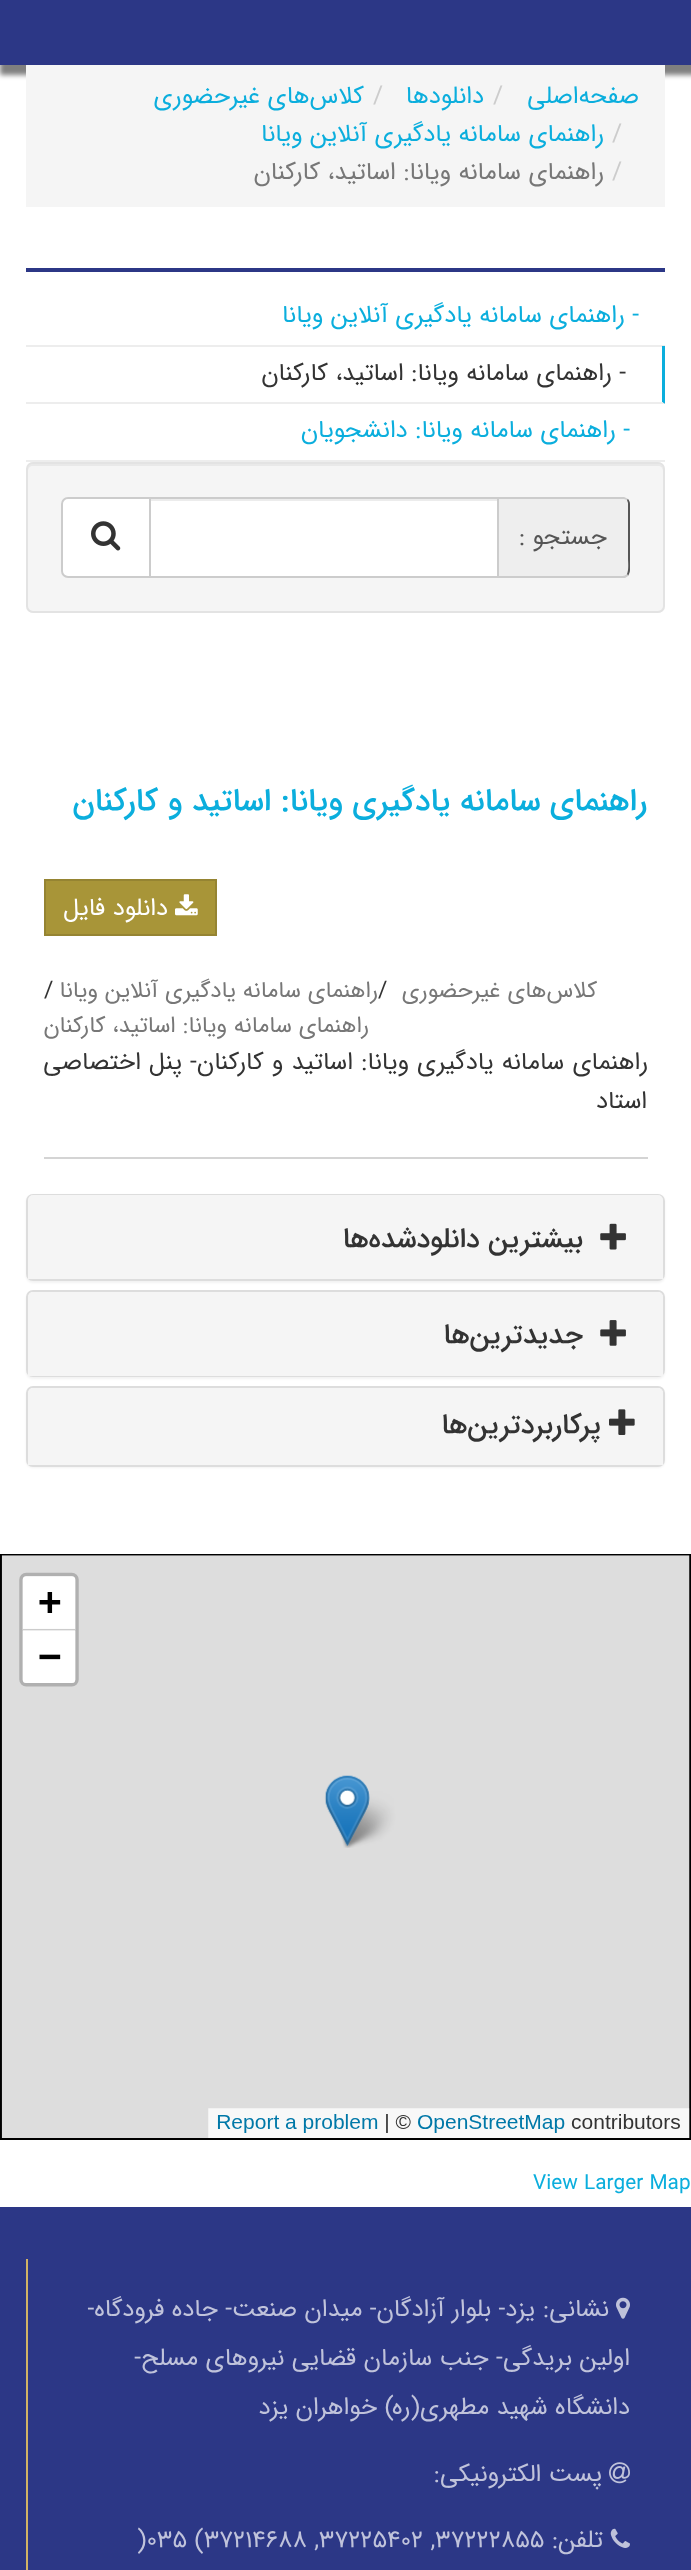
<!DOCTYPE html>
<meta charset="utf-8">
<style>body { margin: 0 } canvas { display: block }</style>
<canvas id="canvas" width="691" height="2570"></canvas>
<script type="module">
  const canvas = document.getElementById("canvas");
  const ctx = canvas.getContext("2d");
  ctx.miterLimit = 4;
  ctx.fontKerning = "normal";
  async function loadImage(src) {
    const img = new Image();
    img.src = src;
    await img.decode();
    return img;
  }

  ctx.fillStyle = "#ffffff";
  ctx.fillRect(0, 0, 691, 2570);
  ctx.fillStyle = "rgba(0, 0, 0, 0.5)";
  ctx.filter = "blur(2.5px)";
  ctx.beginPath();
  ctx.rect(0, -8, 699, 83);
  ctx.fill();
  ctx.filter = "none";
  ctx.fillStyle = "#2c3786";
  ctx.fillRect(0, 0, 691, 65);
  ctx.fillStyle = "#f5f5f5";
  ctx.fillRect(26, 65, 639, 142);
  ctx.direction = "rtl";
  ctx.font = "24.5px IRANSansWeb";
  ctx.fillStyle = "#0baedd";
  ctx.fillText("صفحه‌اصلی", 639, 103);
  ctx.direction = "ltr";
  ctx.fillStyle = "#cccccc";
  ctx.fillText("/", 493, 103);
  ctx.direction = "rtl";
  ctx.fillStyle = "#0baedd";
  ctx.fillText("دانلودها", 484, 103);
  ctx.direction = "ltr";
  ctx.fillStyle = "#cccccc";
  ctx.fillText("/", 373, 103);
  ctx.direction = "rtl";
  ctx.fillStyle = "#0baedd";
  ctx.fillText("کلاس‌های غیرحضوری", 364, 103);
  ctx.direction = "ltr";
  ctx.fillStyle = "#cccccc";
  ctx.fillText("/", 612, 141);
  ctx.direction = "rtl";
  ctx.fillStyle = "#0baedd";
  ctx.fillText("راهنمای سامانه یادگیری آنلاین ویانا", 604, 141);
  ctx.direction = "ltr";
  ctx.fillStyle = "#cccccc";
  ctx.fillText("/", 612, 179);
  ctx.direction = "rtl";
  ctx.fillStyle = "#777777";
  ctx.fillText("راهنمای سامانه ویانا: اساتید، کارکنان", 604, 179);
  ctx.fillStyle = "#2c3786";
  ctx.fillRect(26, 268, 639, 4);
  ctx.fillStyle = "#ededed";
  ctx.fillRect(26, 345, 639, 2);
  ctx.fillStyle = "#0baedd";
  ctx.fillText("- راهنمای سامانه یادگیری آنلاین ویانا", 639, 322);
  ctx.beginPath();
  ctx.moveTo(665, 346);
  ctx.lineTo(665, 404);
  ctx.lineTo(662, 402);
  ctx.lineTo(662, 346);
  ctx.closePath();
  ctx.fill();
  ctx.fillStyle = "#ededed";
  ctx.beginPath();
  ctx.moveTo(665, 404);
  ctx.lineTo(26, 404);
  ctx.lineTo(26, 402);
  ctx.lineTo(662, 402);
  ctx.closePath();
  ctx.fill();
  ctx.fillStyle = "#333333";
  ctx.fillText("- راهنمای سامانه ویانا: اساتید، کارکنان", 626, 380);
  ctx.fillStyle = "#ededed";
  ctx.fillRect(26, 460, 639, 2);
  ctx.fillStyle = "#0baedd";
  ctx.fillText("- راهنمای سامانه ویانا: دانشجویان", 630, 437);
  ctx.fillStyle = "#f5f5f5";
  ctx.beginPath();
  ctx.roundRect(26, 462, 639, 151, 7);
  ctx.fill();
  ctx.fillStyle = "#e9e9e9";
  ctx.beginPath();
  ctx.moveTo(33, 466);
  ctx.lineTo(658, 466);
  ctx.bezierCurveTo(661, 466, 663, 468, 663, 471);
  ctx.lineTo(663, 469);
  ctx.bezierCurveTo(663, 466, 661, 464, 658, 464);
  ctx.lineTo(33, 464);
  ctx.bezierCurveTo(30, 464, 28, 466, 28, 469);
  ctx.lineTo(28, 471);
  ctx.bezierCurveTo(28, 468, 30, 466, 33, 466);
  ctx.closePath();
  ctx.fill();
  ctx.beginPath();
  ctx.roundRect(27, 463, 637, 149, 6);
  ctx.strokeStyle = "#e3e3e3";
  ctx.lineWidth = 2;
  ctx.stroke();
  ctx.fillStyle = "#eeeeee";
  ctx.beginPath();
  ctx.roundRect(499, 497, 131, 81, [0, 7, 7, 0]);
  ctx.fill();
  ctx.fillStyle = "#cccccc";
  ctx.beginPath();
  ctx.moveTo(499, 497);
  ctx.lineTo(624, 497);
  ctx.lineTo(628, 499);
  ctx.lineTo(627, 500);
  ctx.lineTo(624, 499);
  ctx.lineTo(499, 499);
  ctx.closePath();
  ctx.fill();
  ctx.fillStyle = "#555555";
  ctx.beginPath();
  ctx.moveTo(627, 574);
  ctx.bezierCurveTo(629, 570, 628, 561, 628, 559);
  ctx.lineTo(628, 503);
  ctx.lineTo(627, 500);
  ctx.lineTo(628, 499);
  ctx.bezierCurveTo(629, 500, 630, 502, 630, 504);
  ctx.lineTo(630, 570);
  ctx.bezierCurveTo(630, 572, 629, 574, 628, 576);
  ctx.closePath();
  ctx.fill();
  ctx.fillStyle = "#cccccc";
  ctx.beginPath();
  ctx.moveTo(625, 578);
  ctx.lineTo(499, 578);
  ctx.lineTo(499, 576);
  ctx.lineTo(623, 576);
  ctx.bezierCurveTo(624, 576, 626, 575, 627, 574);
  ctx.lineTo(628, 576);
  ctx.closePath();
  ctx.fill();
  ctx.fillStyle = "#555555";
  ctx.fillText("جستجو :", 607, 544);
  ctx.fillStyle = "#ffffff";
  ctx.fillRect(151, 501, 346, 75);
  ctx.fillStyle = "#ececec";
  ctx.fillRect(151, 499, 346, 2);
  ctx.strokeStyle = "#cccccc";
  ctx.strokeRect(150, 498, 348, 79);
  ctx.fillStyle = "#ffffff";
  ctx.beginPath();
  ctx.roundRect(62, 498, 88, 79, [6, 0, 0, 6]);
  ctx.fill();
  ctx.stroke();
  ctx.drawImage(await loadImage("img1.png"), 91, 521, 30, 30);
  ctx.font = "500 31.5px IRANSansWeb";
  ctx.fillStyle = "#0baedd";
  ctx.fillText("راهنمای سامانه یادگیری ویانا: اساتید و کارکنان", 647, 810);
  ctx.fillStyle = "#a89538";
  ctx.beginPath();
  ctx.rect(45, 880, 171, 55);
  ctx.fill();
  ctx.strokeStyle = "#958432";
  ctx.stroke();
  ctx.drawImage(await loadImage("img2.png"), 175, 894, 23, 22);
  ctx.font = "24.5px IRANSansWeb";
  ctx.fillStyle = "#ffffff";
  ctx.fillText("دانلود فایل", 168, 915);
  ctx.font = "22.75px IRANSansWeb";
  ctx.fillStyle = "#777777";
  ctx.fillText("کلاس‌های غیرحضوری", 597, 997);
  ctx.direction = "ltr";
  ctx.fillStyle = "#333333";
  ctx.fillText("/", 378, 997);
  ctx.direction = "rtl";
  ctx.fillStyle = "#777777";
  ctx.fillText("راهنمای سامانه یادگیری آنلاین ویانا", 378, 997);
  ctx.direction = "ltr";
  ctx.fillStyle = "#333333";
  ctx.fillText("/", 44, 997);
  ctx.direction = "rtl";
  ctx.fillStyle = "#777777";
  ctx.fillText("راهنمای سامانه ویانا: اساتید، کارکنان", 369, 1032);
  ctx.wordSpacing = "0.75px";
  ctx.font = "24.5px IRANSansWeb";
  ctx.fillStyle = "#333333";
  ctx.fillText("راهنمای سامانه یادگیری ویانا: اساتید و کارکنان- پنل اختصاصی", 648, 1069);
  ctx.wordSpacing = "0px";
  ctx.fillText("استاد", 647, 1108);
  ctx.fillStyle = "#d4d4d4";
  ctx.fillRect(44, 1157, 604, 2);
  ctx.fillStyle = "rgba(0, 0, 0, 0.05)";
  ctx.filter = "blur(1px)";
  ctx.beginPath();
  ctx.roundRect(26, 1195, 639, 88, 7);
  ctx.fill();
  ctx.filter = "none";
  ctx.beginPath();
  ctx.roundRect(27, 1195, 637, 85, 6);
  ctx.strokeStyle = "#dddddd";
  ctx.stroke();
  ctx.fillStyle = "#f5f5f5";
  ctx.beginPath();
  ctx.roundRect(28, 1195, 635, 84, [5, 5, 0, 0]);
  ctx.fill();
  ctx.drawImage(await loadImage("img3.png"), 600, 1223, 26, 27);
  ctx.font = "500 28px IRANSansWeb";
  ctx.fillStyle = "#333333";
  ctx.fillText("بیشترین دانلودشده‌ها", 583, 1247);
  ctx.fillStyle = "rgba(0, 0, 0, 0.05)";
  ctx.filter = "blur(1px)";
  ctx.beginPath();
  ctx.roundRect(26, 1292, 639, 87, 7);
  ctx.fill();
  ctx.filter = "none";
  ctx.beginPath();
  ctx.roundRect(27, 1291, 637, 85, 6);
  ctx.stroke();
  ctx.fillStyle = "#f5f5f5";
  ctx.beginPath();
  ctx.roundRect(28, 1292, 635, 84, [5, 5, 0, 0]);
  ctx.fill();
  ctx.drawImage(await loadImage("img4.png"), 600, 1320, 26, 26);
  ctx.fillStyle = "#333333";
  ctx.fillText("جدیدترین‌ها", 583, 1343);
  ctx.fillStyle = "rgba(0, 0, 0, 0.05)";
  ctx.filter = "blur(1px)";
  ctx.beginPath();
  ctx.roundRect(26, 1388, 639, 80, 7);
  ctx.fill();
  ctx.filter = "none";
  ctx.beginPath();
  ctx.roundRect(27, 1387, 637, 79, 6);
  ctx.stroke();
  ctx.fillStyle = "#f5f5f5";
  ctx.beginPath();
  ctx.roundRect(28, 1388, 635, 77, [5, 5, 0, 0]);
  ctx.fill();
  ctx.drawImage(await loadImage("img5.png"), 609, 1409, 26, 26);
  ctx.fillStyle = "#333333";
  ctx.fillText("پرکاربردترین‌ها", 601, 1433);
  ctx.strokeStyle = "#000000";
  ctx.strokeRect(1, 1555, 689, 584);
  ctx.drawImage(await loadImage("img6.png"), 1, 1555, 689, 583);
  ctx.direction = "ltr";
  ctx.font = "20.75px IRANSansWeb";
  ctx.fillStyle = "#0baedd";
  ctx.fillText("View Larger Map", 533, 2189);
  ctx.fillStyle = "#2c3786";
  ctx.fillRect(0, 2207, 691, 363);
  ctx.fillStyle = "#d1b365";
  ctx.fillRect(26, 2259, 2, 311);
  ctx.drawImage(await loadImage("img7.png"), 616, 2297, 14, 22);
  ctx.direction = "rtl";
  ctx.font = "24.5px IRANSansWeb";
  ctx.fillStyle = "#c0c3db";
  ctx.fillText("نشانی:", 609, 2316);
  ctx.fillText("یزد- بلوار آزادگان- میدان صنعت- جاده فرودگاه-", 535, 2316);
  ctx.fillText("اولین بریدگی- جنب سازمان قضایی نیروهای مسلح-", 630, 2365);
  ctx.fillText("دانشگاه شهید مطهری(ره) خواهران یزد", 630, 2414);
  ctx.drawImage(await loadImage("img8.png"), 609, 2462, 21, 22);
  ctx.fillText("پست الکترونیکی:", 602, 2481);
  ctx.drawImage(await loadImage("img9.png"), 610, 2528, 20, 20);
  ctx.fillText("تلفن:", 603, 2547);
  ctx.direction = "ltr";
  ctx.fillText(")۰۳۵ (۳۷۲۱۴۶۸۸ ,۳۷۲۲۵۴۰۲ ,۳۷۲۲۲۸۵۵", 137, 2547);
</script>
